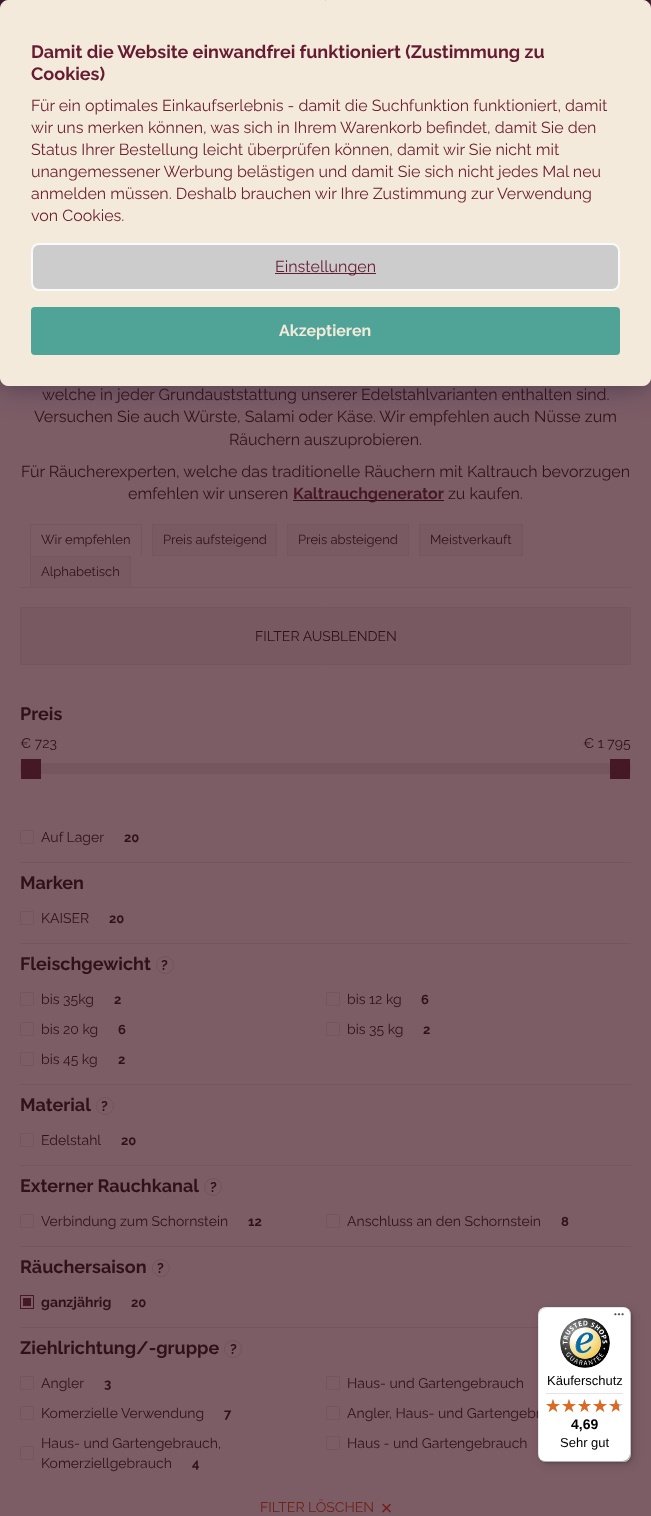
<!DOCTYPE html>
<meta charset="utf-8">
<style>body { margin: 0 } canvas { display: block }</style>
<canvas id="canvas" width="651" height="1516"></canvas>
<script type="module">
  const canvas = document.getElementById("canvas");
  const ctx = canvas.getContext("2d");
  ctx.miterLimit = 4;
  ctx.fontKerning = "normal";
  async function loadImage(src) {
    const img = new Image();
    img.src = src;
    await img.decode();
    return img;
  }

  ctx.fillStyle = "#7c5d66";
  ctx.fillRect(0, 0, 651, 1516);
  ctx.fillStyle = "#441824";
  ctx.fillRect(0, 0, 650, 8);
  ctx.fillStyle = "#552d38";
  ctx.fillRect(650, 0, 1, 8);
  ctx.fillStyle = "rgba(27, 25, 57, 0.5)";
  ctx.filter = "blur(15px)";
  ctx.beginPath();
  ctx.roundRect(0, 0, 651, 386, 8);
  ctx.fill();
  ctx.filter = "none";
  ctx.fillStyle = "#f3eadb";
  ctx.beginPath();
  ctx.roundRect(0.5, 0.5, 650, 385, 7.5);
  ctx.fill();
  ctx.strokeStyle = "#f3eadb";
  ctx.stroke();
  ctx.font = "bold 18px Raleway";
  ctx.fillStyle = "#651b32";
  ctx.fillText("Damit die Website einwandfrei funktioniert (Zustimmung zu", 31, 58);
  ctx.fillText("Cookies)", 31, 80);
  ctx.font = "16px Raleway";
  ctx.fillStyle = "#6d2130";
  ctx.fillText("Für ein optimales Einkaufserlebnis - damit die Suchfunktion funktioniert, damit", 31, 111);
  ctx.fillText("wir uns merken können, was sich in Ihrem Warenkorb befindet, damit Sie den", 31, 133);
  ctx.fillText("Status Ihrer Bestellung leicht überprüfen können, damit wir Sie nicht mit", 31, 155);
  ctx.fillText("unangemessener Werbung belästigen und damit Sie sich nicht jedes Mal neu", 31, 177);
  ctx.fillText("anmelden müssen. Deshalb brauchen wir Ihre Zustimmung zur Verwendung", 31, 199);
  ctx.fillText("von Cookies.", 31, 221);
  ctx.fillStyle = "#cccccc";
  ctx.beginPath();
  ctx.roundRect(32, 244, 587, 46, 7);
  ctx.fill();
  ctx.strokeStyle = "#f8fafb";
  ctx.lineWidth = 2;
  ctx.stroke();
  ctx.fillStyle = "#651b32";
  ctx.fillRect(275, 273, 101, 1);
  ctx.fillText("Einstellungen", 275, 272);
  ctx.fillStyle = "#4fa397";
  ctx.beginPath();
  ctx.roundRect(31, 307, 589, 48, 4);
  ctx.fill();
  ctx.font = "bold 16px Raleway";
  ctx.fillStyle = "#f3eadb";
  ctx.fillText("Akzeptieren", 279, 336);
  ctx.font = "16px Raleway";
  ctx.fillStyle = "#301119";
  ctx.fillText("welche in jeder Grundauststattung unserer Edelstahlvarianten enthalten sind.", 42, 400);
  ctx.fillText("Versuchen Sie auch Würste, Salami oder Käse. Wir empfehlen auch Nüsse zum", 34, 422);
  ctx.fillText("Räuchern auszuprobieren.", 229, 445);
  ctx.fillText("Für Räucherexperten, welche das traditionelle Räuchern mit Kaltrauch bevorzugen", 21, 477);
  ctx.fillText("emfehlen wir unseren", 128, 499);
  ctx.fillRect(293, 500, 151, 1);
  ctx.font = "bold 16px Raleway";
  ctx.fillStyle = "#441824";
  ctx.fillText("Kaltrauchgenerator", 293, 499);
  ctx.font = "16px Raleway";
  ctx.fillStyle = "#301119";
  ctx.fillText("zu kaufen.", 448, 499);
  ctx.fillStyle = "#75565f";
  ctx.fillRect(20, 587, 611, 1);
  ctx.fillRect(30, 524, 112, 1);
  ctx.fillRect(141, 524, 1, 32);
  ctx.fillStyle = "#7c5d66";
  ctx.fillRect(141, 555, 1, 1);
  ctx.fillStyle = "#75565f";
  ctx.fillRect(30, 524, 1, 32);
  ctx.font = "13px Raleway";
  ctx.fillStyle = "#301119";
  ctx.fillText("Wir empfehlen", 41, 544);
  ctx.fillStyle = "#795a63";
  ctx.beginPath();
  ctx.rect(152.5, 524.5, 124, 31);
  ctx.fill();
  ctx.strokeStyle = "#75565f";
  ctx.lineWidth = 1;
  ctx.stroke();
  ctx.fillStyle = "#301119";
  ctx.fillText("Preis aufsteigend", 163, 544);
  ctx.fillStyle = "#795a63";
  ctx.beginPath();
  ctx.rect(287.5, 524.5, 121, 31);
  ctx.fill();
  ctx.stroke();
  ctx.fillStyle = "#301119";
  ctx.fillText("Preis absteigend", 298, 544);
  ctx.fillStyle = "#795a63";
  ctx.beginPath();
  ctx.rect(419.5, 524.5, 103, 31);
  ctx.fill();
  ctx.stroke();
  ctx.fillStyle = "#301119";
  ctx.fillText("Meistverkauft", 430, 544);
  ctx.fillStyle = "#795a63";
  ctx.beginPath();
  ctx.rect(30.5, 556.5, 100, 31);
  ctx.fill();
  ctx.stroke();
  ctx.fillStyle = "#301119";
  ctx.fillText("Alphabetisch", 41, 576);
  ctx.fillStyle = "#785961";
  ctx.beginPath();
  ctx.rect(20.5, 607.5, 610, 57);
  ctx.fill();
  ctx.strokeStyle = "#75565e";
  ctx.stroke();
  ctx.font = "14px Raleway";
  ctx.fillStyle = "#301119";
  ctx.fillText("FILTER AUSBLENDEN", 255, 641);
  ctx.font = "bold 18px Raleway";
  ctx.fillText("Preis", 20, 720);
  ctx.font = "14px Raleway";
  ctx.fillText("€ 723", 20, 748);
  ctx.fillText("€ 1 795", 583, 748);
  ctx.strokeStyle = "#75565f";
  ctx.strokeRect(20.5, 763.5, 610, 9);
  ctx.fillStyle = "#441824";
  ctx.fillRect(21, 759, 20, 20);
  ctx.fillStyle = "#75565f";
  ctx.fillRect(41, 764, 569, 10);
  ctx.fillStyle = "#441824";
  ctx.fillRect(610, 759, 20, 20);
  ctx.strokeStyle = "#75565e";
  ctx.strokeRect(20.5, 830.5, 13, 13);
  ctx.fillStyle = "#301119";
  ctx.fillText("Auf Lager", 41, 842);
  ctx.font = "bold 13px Raleway";
  ctx.fillText("20", 124, 842);
  ctx.fillStyle = "#75565e";
  ctx.fillRect(20, 862, 611, 1);
  ctx.font = "bold 18px Raleway";
  ctx.fillStyle = "#301119";
  ctx.fillText("Marken", 20, 889);
  ctx.strokeRect(20.5, 911.5, 13, 13);
  ctx.font = "14px Raleway";
  ctx.fillText("KAISER", 41, 923);
  ctx.font = "bold 13px Raleway";
  ctx.fillText("20", 109, 923);
  ctx.fillStyle = "#75565e";
  ctx.fillRect(20, 943, 611, 1);
  ctx.font = "bold 18px Raleway";
  ctx.fillStyle = "#301119";
  ctx.fillText("Fleischgewicht", 20, 970);
  ctx.beginPath();
  ctx.arc(165, 965, 8.5, 0, Math.PI * 2);
  ctx.strokeStyle = "#73545c";
  ctx.stroke();
  ctx.font = "bold 14px Raleway";
  ctx.fillText("?", 161, 970);
  ctx.strokeStyle = "#75565e";
  ctx.strokeRect(20.5, 992.5, 13, 13);
  ctx.font = "14px Raleway";
  ctx.fillText("bis 35kg", 41, 1004);
  ctx.font = "bold 13px Raleway";
  ctx.fillText("2", 114, 1004);
  ctx.strokeRect(326.5, 992.5, 13, 13);
  ctx.font = "14px Raleway";
  ctx.fillText("bis 12 kg", 347, 1004);
  ctx.font = "bold 13px Raleway";
  ctx.fillText("6", 421, 1004);
  ctx.strokeRect(20.5, 1022.5, 13, 13);
  ctx.font = "14px Raleway";
  ctx.fillText("bis 20 kg", 41, 1034);
  ctx.font = "bold 13px Raleway";
  ctx.fillText("6", 118, 1034);
  ctx.strokeRect(326.5, 1022.5, 13, 13);
  ctx.font = "14px Raleway";
  ctx.fillText("bis 35 kg", 347, 1034);
  ctx.font = "bold 13px Raleway";
  ctx.fillText("2", 423, 1034);
  ctx.strokeRect(20.5, 1052.5, 13, 13);
  ctx.font = "14px Raleway";
  ctx.fillText("bis 45 kg", 41, 1064);
  ctx.font = "bold 13px Raleway";
  ctx.fillText("2", 118, 1064);
  ctx.fillStyle = "#75565e";
  ctx.fillRect(20, 1084, 611, 1);
  ctx.font = "bold 18px Raleway";
  ctx.fillStyle = "#301119";
  ctx.fillText("Material", 20, 1111);
  ctx.beginPath();
  ctx.arc(105, 1106, 8.5, 0, Math.PI * 2);
  ctx.strokeStyle = "#73545c";
  ctx.stroke();
  ctx.font = "bold 14px Raleway";
  ctx.fillText("?", 101, 1111);
  ctx.strokeStyle = "#75565e";
  ctx.strokeRect(20.5, 1133.5, 13, 13);
  ctx.font = "14px Raleway";
  ctx.fillText("Edelstahl", 41, 1145);
  ctx.font = "bold 13px Raleway";
  ctx.fillText("20", 121, 1145);
  ctx.fillStyle = "#75565e";
  ctx.fillRect(20, 1165, 611, 1);
  ctx.font = "bold 18px Raleway";
  ctx.fillStyle = "#301119";
  ctx.fillText("Externer Rauchkanal", 20, 1192);
  ctx.beginPath();
  ctx.arc(213, 1187, 8.5, 0, Math.PI * 2);
  ctx.strokeStyle = "#73545c";
  ctx.stroke();
  ctx.font = "bold 14px Raleway";
  ctx.fillText("?", 210, 1192);
  ctx.strokeStyle = "#75565e";
  ctx.strokeRect(20.5, 1214.5, 13, 13);
  ctx.font = "14px Raleway";
  ctx.fillText("Verbindung zum Schornstein", 41, 1226);
  ctx.font = "bold 13px Raleway";
  ctx.fillText("12", 248, 1226);
  ctx.strokeRect(326.5, 1214.5, 13, 13);
  ctx.font = "14px Raleway";
  ctx.fillText("Anschluss an den Schornstein", 347, 1226);
  ctx.font = "bold 13px Raleway";
  ctx.fillText("8", 561, 1226);
  ctx.fillStyle = "#75565e";
  ctx.fillRect(20, 1246, 611, 1);
  ctx.font = "bold 18px Raleway";
  ctx.fillStyle = "#301119";
  ctx.fillText("Räuchersaison", 20, 1273);
  ctx.beginPath();
  ctx.arc(161, 1268, 8.5, 0, Math.PI * 2);
  ctx.strokeStyle = "#73545c";
  ctx.stroke();
  ctx.font = "bold 14px Raleway";
  ctx.fillText("?", 157, 1273);
  ctx.strokeStyle = "#441824";
  ctx.strokeRect(20.5, 1295.5, 13, 13);
  ctx.fillText("ganzjährig", 41, 1307);
  ctx.fillStyle = "#441824";
  ctx.fillRect(23, 1298, 8, 8);
  ctx.font = "bold 13px Raleway";
  ctx.fillStyle = "#301119";
  ctx.fillText("20", 131, 1307);
  ctx.fillStyle = "#75565e";
  ctx.fillRect(20, 1327, 518, 1);
  ctx.font = "bold 18px Raleway";
  ctx.fillStyle = "#301119";
  ctx.fillText("Ziehlrichtung/-gruppe", 20, 1354);
  ctx.beginPath();
  ctx.arc(233, 1349, 8.5, 0, Math.PI * 2);
  ctx.strokeStyle = "#73545c";
  ctx.stroke();
  ctx.font = "bold 14px Raleway";
  ctx.fillText("?", 230, 1354);
  ctx.strokeStyle = "#75565e";
  ctx.strokeRect(20.5, 1376.5, 13, 13);
  ctx.font = "14px Raleway";
  ctx.fillText("Angler", 41, 1388);
  ctx.font = "bold 13px Raleway";
  ctx.fillText("3", 104, 1388);
  ctx.strokeRect(326.5, 1376.5, 13, 13);
  ctx.font = "14px Raleway";
  ctx.fillText("Haus- und Gartengebrauch", 347, 1388);
  ctx.strokeRect(20.5, 1406.5, 13, 13);
  ctx.fillText("Komerzielle Verwendung", 41, 1418);
  ctx.font = "bold 13px Raleway";
  ctx.fillText("7", 224, 1418);
  ctx.strokeRect(326.5, 1406.5, 13, 13);
  ctx.font = "14px Raleway";
  ctx.fillText("Angler, Haus- und Gartengebr", 347, 1418);
  ctx.strokeRect(20.5, 1446.5, 13, 13);
  ctx.fillText("Haus- und Gartengebrauch,", 41, 1448);
  ctx.fillText("Komerziellgebrauch", 41, 1468);
  ctx.font = "bold 13px Raleway";
  ctx.fillText("4", 192, 1468);
  ctx.strokeRect(326.5, 1436.5, 13, 13);
  ctx.font = "14px Raleway";
  ctx.fillText("Haus - und Gartengebrauch", 347, 1448);
  ctx.fillStyle = "#702119";
  ctx.fillText("FILTER LÖSCHEN", 260, 1512);
  ctx.drawImage(await loadImage("img1.png"), 382, 1503, 9, 10);
  ctx.fillStyle = "rgba(0, 0, 0, 0.15)";
  ctx.filter = "blur(4px)";
  ctx.beginPath();
  ctx.roundRect(541, 1310, 93, 155, 8);
  ctx.fill();
  ctx.filter = "none";
  ctx.filter = "blur(1px)";
  ctx.beginPath();
  ctx.roundRect(539, 1308, 93, 155, 8);
  ctx.fill();
  ctx.filter = "none";
  ctx.fillStyle = "#ffffff";
  ctx.beginPath();
  ctx.roundRect(538, 1307, 93, 155, 8);
  ctx.fill();
  ctx.fillStyle = "rgba(0, 0, 0, 0.1)";
  ctx.beginPath();
  ctx.moveTo(547, 1308);
  ctx.lineTo(624, 1308);
  ctx.bezierCurveTo(626, 1308, 628, 1309, 630, 1311);
  ctx.bezierCurveTo(628, 1309, 626, 1307, 623, 1307);
  ctx.lineTo(546, 1307);
  ctx.bezierCurveTo(542, 1307, 538, 1311, 538, 1315);
  ctx.lineTo(538, 1454);
  ctx.bezierCurveTo(538, 1457, 540, 1459, 542, 1461);
  ctx.bezierCurveTo(540, 1459, 539, 1457, 539, 1455);
  ctx.lineTo(539, 1316);
  ctx.bezierCurveTo(539, 1312, 543, 1308, 547, 1308);
  ctx.closePath();
  ctx.fill();
  ctx.fillStyle = "rgba(0, 0, 0, 0.2)";
  ctx.beginPath();
  ctx.moveTo(539, 1458);
  ctx.bezierCurveTo(541, 1460, 543, 1462, 546, 1462);
  ctx.lineTo(623, 1462);
  ctx.bezierCurveTo(627, 1462, 631, 1458, 631, 1454);
  ctx.lineTo(631, 1315);
  ctx.bezierCurveTo(631, 1312, 629, 1310, 627, 1308);
  ctx.bezierCurveTo(629, 1310, 630, 1312, 630, 1314);
  ctx.lineTo(630, 1453);
  ctx.bezierCurveTo(630, 1457, 626, 1461, 622, 1461);
  ctx.lineTo(545, 1461);
  ctx.bezierCurveTo(543, 1461, 541, 1460, 539, 1458);
  ctx.closePath();
  ctx.fill();
  ctx.fillStyle = "rgba(50, 50, 50, 0.2)";
  ctx.beginPath();
  ctx.moveTo(540, 1459);
  ctx.bezierCurveTo(541, 1461, 544, 1462, 546, 1462);
  ctx.lineTo(623, 1462);
  ctx.bezierCurveTo(627, 1462, 631, 1458, 631, 1454);
  ctx.lineTo(631, 1315);
  ctx.bezierCurveTo(631, 1313, 630, 1310, 628, 1309);
  ctx.bezierCurveTo(629, 1310, 630, 1312, 630, 1314);
  ctx.lineTo(630, 1453);
  ctx.bezierCurveTo(630, 1458, 627, 1461, 622, 1461);
  ctx.lineTo(545, 1461);
  ctx.bezierCurveTo(543, 1461, 541, 1460, 540, 1459);
  ctx.closePath();
  ctx.fill();
  ctx.fillStyle = "rgba(255, 255, 255, 0.3)";
  ctx.beginPath();
  ctx.moveTo(622, 1462);
  ctx.lineTo(623, 1462);
  ctx.bezierCurveTo(627, 1462, 631, 1458, 631, 1454);
  ctx.lineTo(631, 1315);
  ctx.bezierCurveTo(631, 1313, 630, 1310, 628, 1309);
  ctx.bezierCurveTo(629, 1310, 630, 1312, 630, 1314);
  ctx.lineTo(630, 1454);
  ctx.bezierCurveTo(630, 1458, 627, 1462, 622, 1462);
  ctx.closePath();
  ctx.fill();
  ctx.drawImage(await loadImage("img2.png"), 614, 1313, 10, 3);
  ctx.drawImage(await loadImage("img3.png"), 560, 1318, 50, 50);
  ctx.font = "13px Liberation Sans";
  ctx.fillStyle = "#000000";
  ctx.fillText("Käuferschutz", 547, 1385);
  ctx.fillStyle = "#e5e5e5";
  ctx.fillRect(546, 1393, 77, 1);
  ctx.drawImage(await loadImage("img4.png"), 546, 1399, 14, 13);
  ctx.drawImage(await loadImage("img4.png"), 562, 1399, 14, 13);
  ctx.drawImage(await loadImage("img5.png"), 578, 1399, 13, 13);
  ctx.drawImage(await loadImage("img4.png"), 593, 1399, 14, 13);
  ctx.drawImage(await loadImage("img4.png"), 609, 1399, 14, 13);
  ctx.drawImage(await loadImage("img6.png"), 546, 1399, 14, 13);
  ctx.drawImage(await loadImage("img6.png"), 562, 1399, 14, 13);
  ctx.drawImage(await loadImage("img7.png"), 578, 1399, 13, 13);
  ctx.drawImage(await loadImage("img6.png"), 593, 1399, 14, 13);
  ctx.drawImage(await loadImage("img8.png"), 609, 1399, 10, 13);
  ctx.font = "bold 14px Liberation Sans";
  ctx.fillStyle = "#000000";
  ctx.fillText("4,69", 571, 1429);
  ctx.font = "13px Liberation Sans";
  ctx.fillText("Sehr gut", 560, 1447);
</script>
